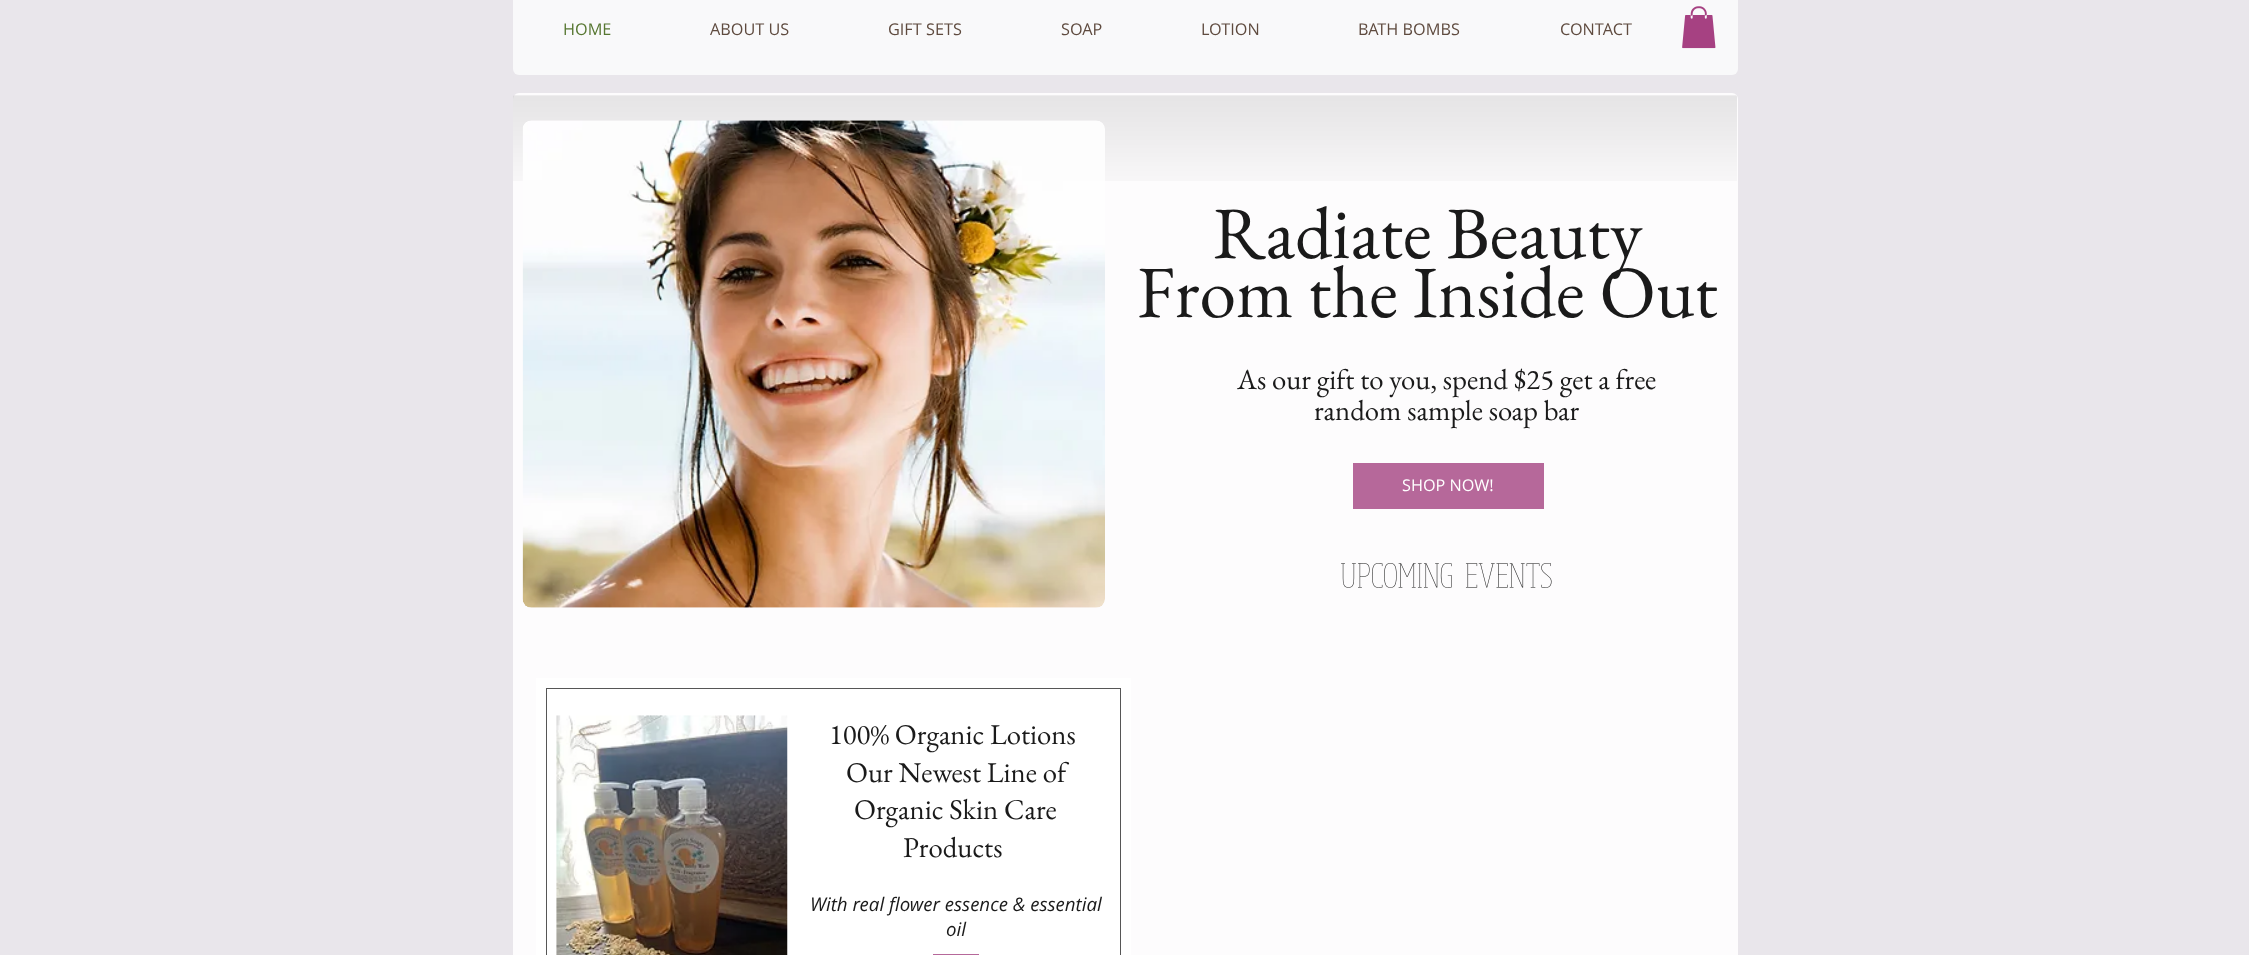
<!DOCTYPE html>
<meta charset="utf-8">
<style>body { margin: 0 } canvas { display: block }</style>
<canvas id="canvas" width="2249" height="955"></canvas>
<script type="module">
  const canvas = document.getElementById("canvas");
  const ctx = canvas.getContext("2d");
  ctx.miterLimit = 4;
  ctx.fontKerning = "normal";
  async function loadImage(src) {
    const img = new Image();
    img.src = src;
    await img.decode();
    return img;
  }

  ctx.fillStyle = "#e9e6eb";
  ctx.fillRect(0, 0, 2249, 955);
  ctx.fillStyle = "#f9f9fa";
  ctx.beginPath();
  ctx.roundRect(513, -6, 1225, 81, 6);
  ctx.fill();
  ctx.font = "16.25px Open Sans";
  ctx.fillStyle = "#577731";
  ctx.fillText("HOME", 563, 35);
  ctx.fillStyle = "#5f4b3f";
  ctx.fillText("ABOUT US", 710, 35);
  ctx.fillText("GIFT SETS", 888, 35);
  ctx.fillText("SOAP", 1061, 35);
  ctx.fillText("LOTION", 1201, 35);
  ctx.fillText("BATH BOMBS", 1358, 35);
  ctx.fillText("CONTACT", 1560, 35);
  ctx.drawImage(await loadImage("img1.png"), 1682, 6, 34, 43);
  ctx.fillStyle = "#fdfcfd";
  ctx.beginPath();
  ctx.roundRect(513, 93, 1225, 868, 6);
  ctx.fill();
  ctx.drawImage(await loadImage("img2.png"), 513, 95, 1224, 86);
  ctx.drawImage(await loadImage("img3.png"), 522, 120, 583, 488);
  ctx.font = "73.75px EB Garamond";
  ctx.fillStyle = "#1a1a1a";
  ctx.fillText("Radiate Beauty", 1213, 258);
  ctx.fillText("From the Inside Out", 1137, 317);
  ctx.font = "28.75px EB Garamond";
  ctx.fillText("As our gift to you, spend $25 get a free", 1237, 389);
  ctx.fillText("random sample soap bar", 1314, 420);
  ctx.fillStyle = "#b6689a";
  ctx.fillRect(1353, 463, 191, 46);
  ctx.font = "16.25px Open Sans";
  ctx.fillStyle = "#ffffff";
  ctx.fillText("SHOP NOW!", 1402, 491);
  ctx.drawImage(await loadImage("img4.png"), 1341, 563, 211, 25);
  ctx.fillRect(536, 678, 595, 277);
  ctx.strokeStyle = "#565656";
  ctx.strokeRect(546.5, 688.5, 574, 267);
  ctx.drawImage(await loadImage("img5.png"), 556, 715, 232, 240);
  ctx.font = "28.75px EB Garamond";
  ctx.fillStyle = "#1a1a1a";
  ctx.fillText("100% Organic Lotions", 829, 744);
  ctx.fillText("Our Newest Line of", 846, 782);
  ctx.fillText("Organic Skin Care", 854, 819);
  ctx.fillText("Products", 903, 857);
  ctx.font = "italic 18.75px Open Sans";
  ctx.fillText("With real flower essence & essential", 810, 911);
  ctx.fillText("oil", 946, 936);
  ctx.fillStyle = "#b6689a";
  ctx.fillRect(933, 954, 46, 1);
</script>
